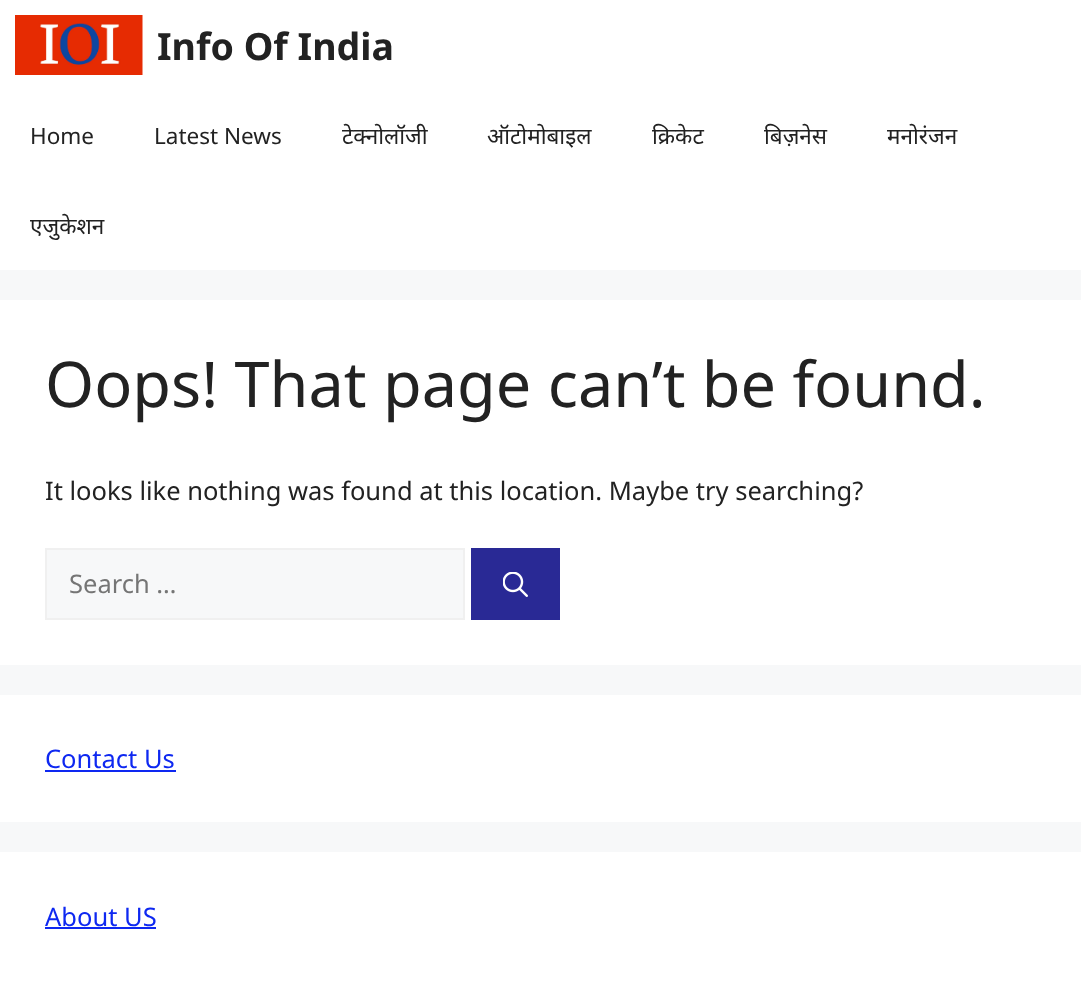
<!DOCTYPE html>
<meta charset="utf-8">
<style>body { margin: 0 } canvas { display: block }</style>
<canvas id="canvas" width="1081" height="981"></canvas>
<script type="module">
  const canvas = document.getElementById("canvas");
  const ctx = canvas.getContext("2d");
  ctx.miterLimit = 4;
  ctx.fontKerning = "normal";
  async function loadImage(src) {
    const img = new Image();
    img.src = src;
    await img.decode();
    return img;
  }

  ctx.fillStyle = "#f7f8f9";
  ctx.fillRect(0, 0, 1081, 981);
  ctx.fillStyle = "#ffffff";
  ctx.fillRect(0, 0, 1081, 270);
  ctx.drawImage(await loadImage("img1.png"), 15, 15, 128, 60);
  ctx.font = "bold 37.5px Noto Sans";
  ctx.fillStyle = "#222222";
  ctx.fillText("Info Of India", 157, 60);
  ctx.font = "22.5px Noto Sans";
  ctx.fillText("Home", 30, 144);
  ctx.fillText("Latest News", 154, 144);
  ctx.fillText("टेक्नोलॉजी", 342, 144);
  ctx.fillText("ऑटोमोबाइल", 487, 144);
  ctx.fillText("क्रिकेट", 652, 144);
  ctx.fillText("बिज़नेस", 764, 144);
  ctx.fillText("मनोरंजन", 887, 144);
  ctx.fillText("एजुकेशन", 30, 234);
  ctx.fillStyle = "#ffffff";
  ctx.fillRect(0, 300, 1081, 365);
  ctx.font = "63px Noto Sans";
  ctx.fillStyle = "#222222";
  ctx.fillText("Oops! That page can’t be found.", 45, 407);
  ctx.font = "25.5px Noto Sans";
  ctx.fillText("It looks like nothing was found at this location. Maybe try searching?", 45, 500);
  ctx.fillStyle = "#f7f8f9";
  ctx.beginPath();
  ctx.rect(46, 549, 418, 70);
  ctx.fill();
  ctx.strokeStyle = "#f0f0f0";
  ctx.lineWidth = 2;
  ctx.stroke();
  ctx.fillStyle = "#757575";
  ctx.fillText("Search …", 69, 593);
  ctx.fillStyle = "#292995";
  ctx.fillRect(471, 548, 89, 72);
  ctx.drawImage(await loadImage("img2.png"), 503, 572, 25, 25);
  ctx.fillStyle = "#ffffff";
  ctx.fillRect(0, 695, 1081, 127);
  ctx.fillStyle = "#0e28f1";
  ctx.fillText("Contact Us", 45, 768);
  ctx.fillRect(45, 770, 131, 2);
  ctx.fillStyle = "#ffffff";
  ctx.fillRect(0, 852, 1081, 129);
  ctx.fillStyle = "#0e28f1";
  ctx.fillText("About US", 45, 926);
  ctx.fillRect(45, 927, 111, 2);
</script>
